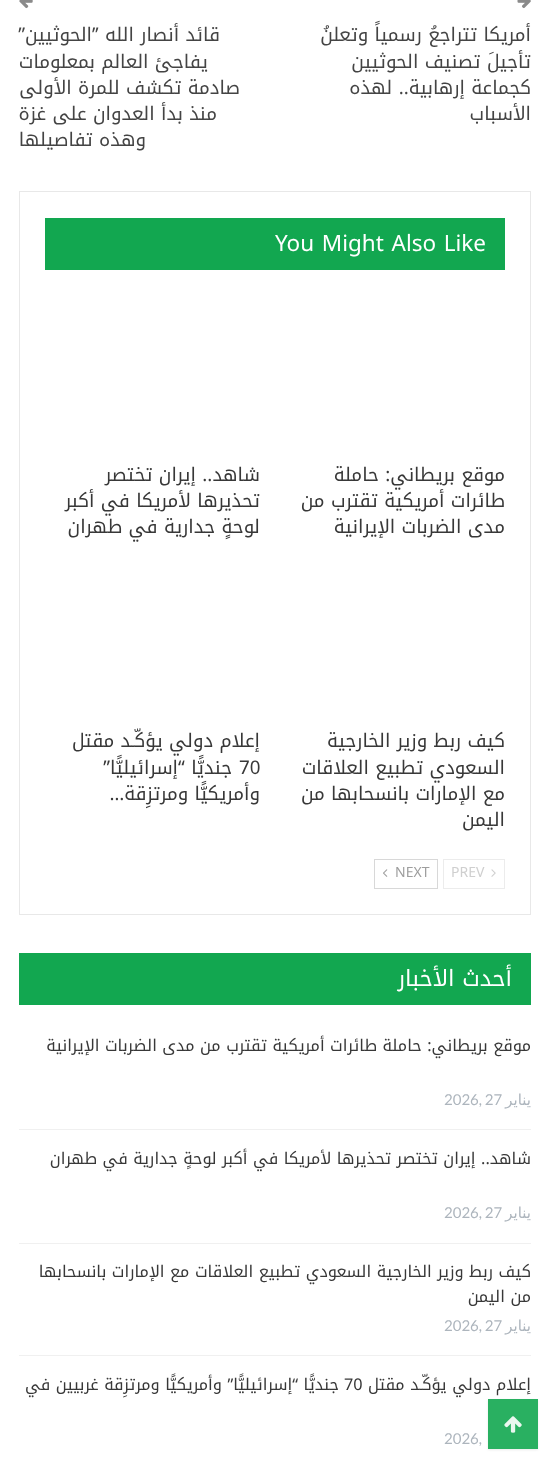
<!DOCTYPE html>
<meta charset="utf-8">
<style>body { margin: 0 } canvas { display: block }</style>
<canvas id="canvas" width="549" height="1458"></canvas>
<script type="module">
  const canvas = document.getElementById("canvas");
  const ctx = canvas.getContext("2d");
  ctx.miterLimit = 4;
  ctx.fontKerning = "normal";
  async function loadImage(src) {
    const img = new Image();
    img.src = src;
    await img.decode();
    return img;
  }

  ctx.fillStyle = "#ffffff";
  ctx.fillRect(0, 0, 549, 1458);
  ctx.drawImage(await loadImage("img1.png"), 517, 0, 14, 9);
  ctx.direction = "rtl";
  ctx.font = "18.75px Noto Kufi Arabic";
  ctx.fillStyle = "#444444";
  ctx.fillText("أمريكا تتراجعُ رسمياً وتعلنُ", 531, 41);
  ctx.fillText("تأجيلَ تصنيف الحوثيين", 531, 68);
  ctx.fillText("كجماعة إرهابية.. لهذه", 531, 94);
  ctx.fillText("الأسباب", 531, 120);
  ctx.drawImage(await loadImage("img2.png"), 19, 0, 14, 9);
  ctx.fillText("قائد أنصار الله ’’الحوثيين’’", 220, 41);
  ctx.fillText("يفاجئ العالم بمعلومات", 208, 68);
  ctx.fillText("صادمة تكشف للمرة الأولى", 240, 94);
  ctx.fillText("منذ بدأ العدوان على غزة", 217, 120);
  ctx.fillText("وهذه تفاصيلها", 146, 146);
  ctx.strokeStyle = "#e8e8e8";
  ctx.strokeRect(19.5, 191.5, 511, 723);
  ctx.fillStyle = "#12a750";
  ctx.fillRect(45, 218, 460, 52);
  ctx.direction = "ltr";
  ctx.font = "22.5px Noto Kufi Arabic";
  ctx.fillStyle = "#ffffff";
  ctx.fillText("You Might Also Like", 275, 251);
  ctx.direction = "rtl";
  ctx.font = "18.75px Noto Kufi Arabic";
  ctx.fillStyle = "#383838";
  ctx.fillText("موقع بريطاني: حاملة", 505, 481);
  ctx.fillText("طائرات أمريكية تقترب من", 505, 507);
  ctx.fillText("مدى الضربات الإيرانية", 505, 533);
  ctx.fillText("شاهد.. إيران تختصر", 260, 481);
  ctx.fillText("تحذيرها لأمريكا في أكبر", 260, 507);
  ctx.fillText("لوحةٍ جدارية في طهران", 260, 533);
  ctx.fillText("كيف ربط وزير الخارجية", 505, 747);
  ctx.fillText("السعودي تطبيع العلاقات", 505, 774);
  ctx.fillText("مع الإمارات بانسحابها من", 505, 800);
  ctx.fillText("اليمن", 505, 826);
  ctx.fillText("إعلام دولي يؤكّـد مقتل", 260, 747);
  ctx.direction = "ltr";
  ctx.fillText("70", 239, 774);
  ctx.direction = "rtl";
  ctx.fillText("جنديًّا “إسرائيليًّا”", 232, 774);
  ctx.fillText("وأمريكيًّا ومرتزِقة…", 260, 800);
  ctx.strokeStyle = "#ececec";
  ctx.strokeRect(443.5, 859.5, 61, 29);
  ctx.drawImage(await loadImage("img3.png"), 491, 869, 5, 8);
  ctx.direction = "ltr";
  ctx.font = "14px Noto Kufi Arabic";
  ctx.fillStyle = "#cfcfcf";
  ctx.fillText("PREV", 451, 877);
  ctx.strokeStyle = "#d8d8d8";
  ctx.strokeRect(374.5, 859.5, 63, 29);
  ctx.fillStyle = "#9e9e9e";
  ctx.fillText("NEXT", 395, 877);
  ctx.drawImage(await loadImage("img4.png"), 383, 869, 5, 8);
  ctx.fillStyle = "#12a750";
  ctx.fillRect(19, 953, 512, 52);
  ctx.direction = "rtl";
  ctx.font = "22.5px Noto Kufi Arabic";
  ctx.fillStyle = "#ffffff";
  ctx.fillText("أحدث الأخبار", 512, 986);
  ctx.fillStyle = "#f0f0f0";
  ctx.fillRect(19, 1129, 512, 1);
  ctx.font = "16.25px Noto Kufi Arabic";
  ctx.fillStyle = "#383838";
  ctx.fillText("موقع بريطاني: حاملة طائرات أمريكية تقترب من مدى الضربات الإيرانية", 531, 1051);
  ctx.font = "15px DejaVu Sans";
  ctx.fillStyle = "#adb5bd";
  ctx.fillText("يناير", 531, 1105);
  ctx.direction = "ltr";
  ctx.font = "15px Lato";
  ctx.fillText("2026, 27", 444, 1105);
  ctx.fillStyle = "#f0f0f0";
  ctx.fillRect(19, 1243, 512, 1);
  ctx.direction = "rtl";
  ctx.font = "16.25px Noto Kufi Arabic";
  ctx.fillStyle = "#383838";
  ctx.fillText("شاهد.. إيران تختصر تحذيرها لأمريكا في أكبر لوحةٍ جدارية في طهران", 531, 1164);
  ctx.font = "15px DejaVu Sans";
  ctx.fillStyle = "#adb5bd";
  ctx.fillText("يناير", 531, 1218);
  ctx.direction = "ltr";
  ctx.font = "15px Lato";
  ctx.fillText("2026, 27", 444, 1218);
  ctx.fillStyle = "#f0f0f0";
  ctx.fillRect(19, 1355, 512, 1);
  ctx.direction = "rtl";
  ctx.font = "16.25px Noto Kufi Arabic";
  ctx.fillStyle = "#383838";
  ctx.fillText("كيف ربط وزير الخارجية السعودي تطبيع العلاقات مع الإمارات بانسحابها", 531, 1277);
  ctx.fillText("من اليمن", 531, 1302);
  ctx.font = "15px DejaVu Sans";
  ctx.fillStyle = "#adb5bd";
  ctx.fillText("يناير", 531, 1331);
  ctx.direction = "ltr";
  ctx.font = "15px Lato";
  ctx.fillText("2026, 27", 444, 1331);
  ctx.direction = "rtl";
  ctx.font = "16.25px Noto Kufi Arabic";
  ctx.fillStyle = "#383838";
  ctx.fillText("إعلام دولي يؤكّـد مقتل", 531, 1390);
  ctx.direction = "ltr";
  ctx.fillText("70", 344, 1390);
  ctx.direction = "rtl";
  ctx.fillText("جنديًّا “إسرائيليًّا” وأمريكيًّا ومرتزِقة غربيين في", 339, 1390);
  ctx.direction = "ltr";
  ctx.font = "15px Lato";
  ctx.fillStyle = "#adb5bd";
  ctx.fillText("2026,", 444, 1444);
  ctx.save();
  ctx.beginPath();
  ctx.moveTo(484, 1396);
  ctx.lineTo(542, 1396);
  ctx.lineTo(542, 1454);
  ctx.lineTo(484, 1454);
  ctx.closePath();
  ctx.moveTo(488, 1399);
  ctx.lineTo(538, 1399);
  ctx.lineTo(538, 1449);
  ctx.lineTo(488, 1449);
  ctx.closePath();
  ctx.clip("evenodd");
  ctx.fillStyle = "rgba(0, 0, 0, 0.08)";
  ctx.filter = "blur(1px)";
  ctx.beginPath();
  ctx.rect(488, 1400, 50, 50);
  ctx.fill();
  ctx.filter = "none";
  ctx.restore();
  ctx.fillStyle = "rgba(18, 167, 80, 0.9)";
  ctx.fillRect(488, 1399, 50, 50);
  ctx.drawImage(await loadImage("img5.png"), 504, 1416, 18, 17);
</script>
